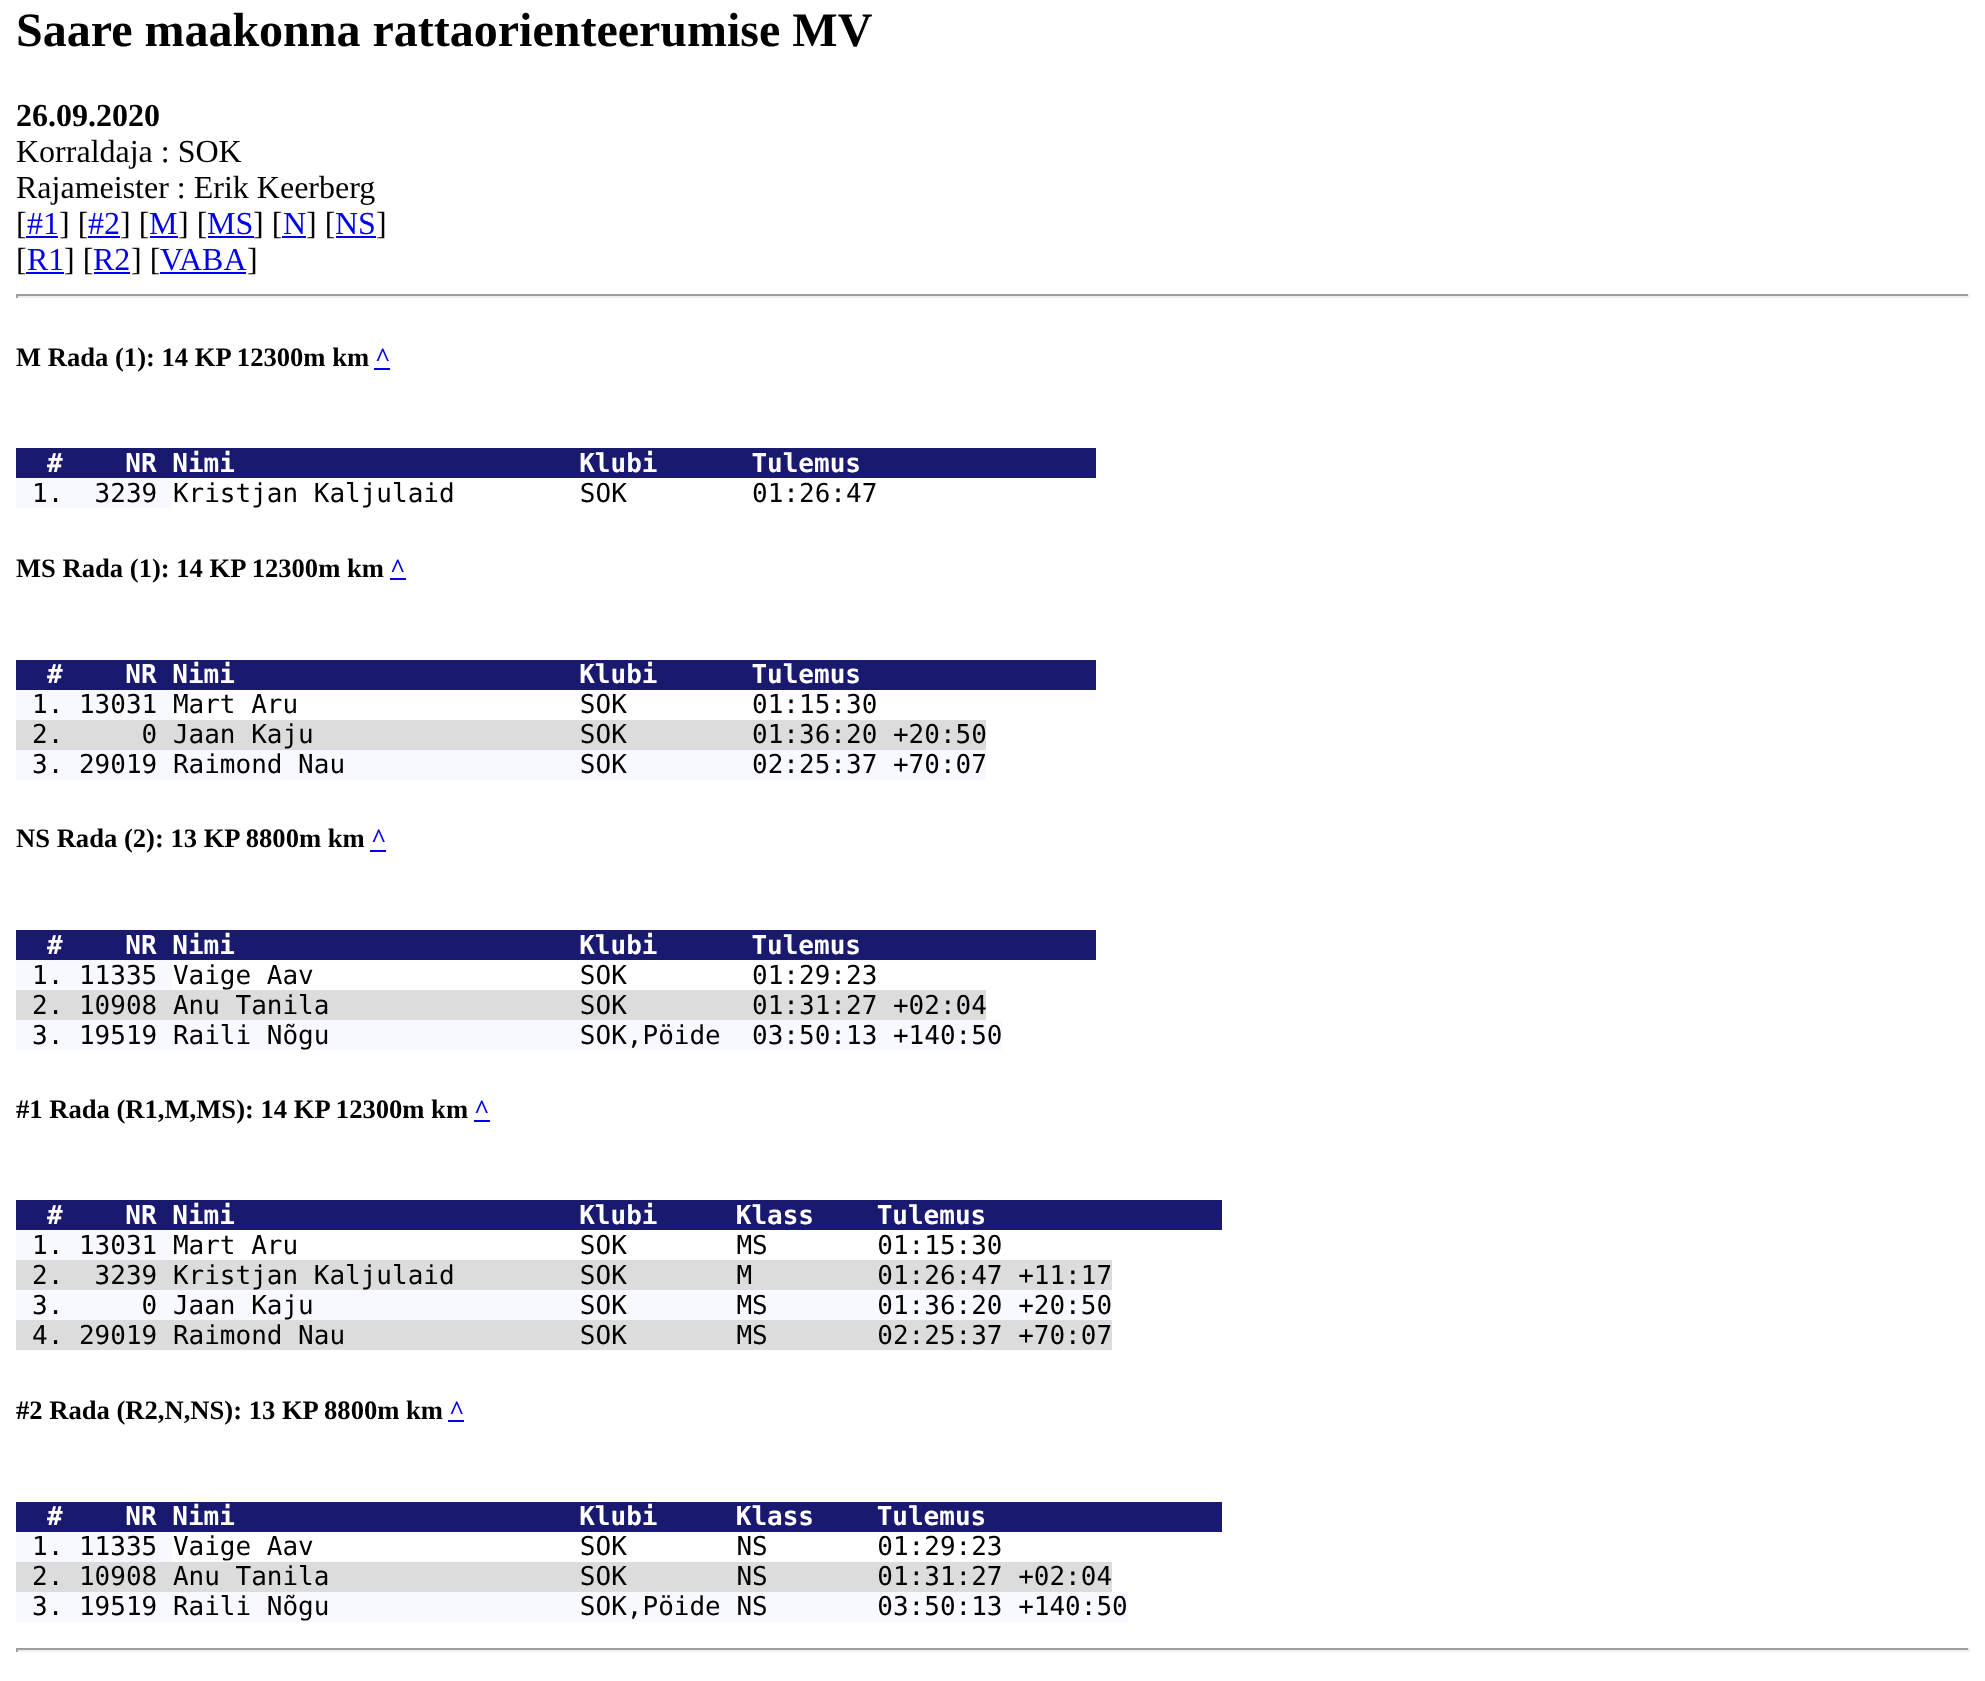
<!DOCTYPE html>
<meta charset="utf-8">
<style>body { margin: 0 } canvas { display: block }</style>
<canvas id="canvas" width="1985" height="1681"></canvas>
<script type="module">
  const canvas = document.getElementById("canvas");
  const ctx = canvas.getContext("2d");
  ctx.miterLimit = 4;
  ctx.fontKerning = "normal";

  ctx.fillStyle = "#ffffff";
  ctx.fillRect(0, 0, 1985, 1681);
  ctx.font = "bold 48px Liberation Serif";
  ctx.fillStyle = "#000000";
  ctx.fillText("Saare maakonna rattaorienteerumise MV", 16, 46);
  ctx.font = "bold 32px Liberation Serif";
  ctx.fillText("26.09.2020", 16, 126);
  ctx.font = "32px Liberation Serif";
  ctx.fillText("Korraldaja : SOK", 16, 162);
  ctx.fillText("Rajameister : Erik Keerberg", 16, 198);
  ctx.fillText("[", 16, 234);
  ctx.fillStyle = "#0000ee";
  ctx.fillText("#1", 27, 234);
  ctx.fillRect(26, 236, 32, 2);
  ctx.fillStyle = "#000000";
  ctx.fillText("] [", 59, 234);
  ctx.fillStyle = "#0000ee";
  ctx.fillText("#2", 88, 234);
  ctx.fillRect(88, 236, 32, 2);
  ctx.fillStyle = "#000000";
  ctx.fillText("] [", 120, 234);
  ctx.fillStyle = "#0000ee";
  ctx.fillText("M", 149, 234);
  ctx.fillRect(150, 236, 28, 2);
  ctx.fillStyle = "#000000";
  ctx.fillText("] [", 178, 234);
  ctx.fillStyle = "#0000ee";
  ctx.fillText("MS", 207, 234);
  ctx.fillRect(208, 236, 46, 2);
  ctx.fillStyle = "#000000";
  ctx.fillText("] [", 253, 234);
  ctx.fillStyle = "#0000ee";
  ctx.fillText("N", 283, 234);
  ctx.fillRect(282, 236, 24, 2);
  ctx.fillStyle = "#000000";
  ctx.fillText("] [", 306, 234);
  ctx.fillStyle = "#0000ee";
  ctx.fillText("NS", 335, 234);
  ctx.fillRect(336, 236, 40, 2);
  ctx.fillStyle = "#000000";
  ctx.fillText("]", 376, 234);
  ctx.fillText("[", 16, 270);
  ctx.fillStyle = "#0000ee";
  ctx.fillText("R1", 27, 270);
  ctx.fillRect(26, 272, 38, 2);
  ctx.fillStyle = "#000000";
  ctx.fillText("] [", 64, 270);
  ctx.fillStyle = "#0000ee";
  ctx.fillText("R2", 93, 270);
  ctx.fillRect(94, 272, 36, 2);
  ctx.fillStyle = "#000000";
  ctx.fillText("] [", 131, 270);
  ctx.fillStyle = "#0000ee";
  ctx.fillText("VABA", 160, 270);
  ctx.fillRect(160, 272, 86, 2);
  ctx.fillStyle = "#000000";
  ctx.fillText("]", 247, 270);
  ctx.fillStyle = "#9f9f9f";
  ctx.fillRect(16, 294, 1954, 2);
  ctx.fillStyle = "#eeeeee";
  ctx.fillRect(1968, 294, 2, 4);
  ctx.fillRect(16, 296, 1954, 2);
  ctx.fillStyle = "#9f9f9f";
  ctx.fillRect(16, 294, 2, 4);
  ctx.font = "bold 26.6px Liberation Serif";
  ctx.fillStyle = "#000000";
  ctx.fillText("M Rada (1): 14 KP 12300m km", 16, 366);
  ctx.fillStyle = "#0000ee";
  ctx.fillText("^", 375, 366);
  ctx.fillRect(374, 368, 16, 2);
  ctx.fillStyle = "#191970";
  ctx.fillRect(16, 448, 1080, 30);
  ctx.font = "bold 26px DejaVu Sans Mono";
  ctx.fillStyle = "#ffffff";
  ctx.fillText("#    NR Nimi                      Klubi      Tulemus", 47, 472);
  ctx.fillStyle = "#f8f8ff";
  ctx.fillRect(16, 478, 156, 30);
  ctx.font = "26px DejaVu Sans Mono";
  ctx.fillStyle = "#000000";
  ctx.fillText("1.  3239 Kristjan Kaljulaid        SOK        01:26:47", 32, 502);
  ctx.font = "bold 26.6px Liberation Serif";
  ctx.fillText("MS Rada (1): 14 KP 12300m km", 16, 577);
  ctx.fillStyle = "#0000ee";
  ctx.fillText("^", 390, 577);
  ctx.fillRect(390, 578, 16, 2);
  ctx.fillStyle = "#191970";
  ctx.fillRect(16, 660, 1080, 30);
  ctx.font = "bold 26px DejaVu Sans Mono";
  ctx.fillStyle = "#ffffff";
  ctx.fillText("#    NR Nimi                      Klubi      Tulemus", 47, 683);
  ctx.fillStyle = "#f8f8ff";
  ctx.fillRect(16, 690, 156, 30);
  ctx.font = "26px DejaVu Sans Mono";
  ctx.fillStyle = "#000000";
  ctx.fillText("1. 13031 Mart Aru                  SOK        01:15:30", 32, 713);
  ctx.fillStyle = "#dcdcdc";
  ctx.fillRect(16, 720, 970, 30);
  ctx.fillStyle = "#000000";
  ctx.fillText("2.     0 Jaan Kaju                 SOK        01:36:20 +20:50", 32, 743);
  ctx.fillStyle = "#f8f8ff";
  ctx.fillRect(16, 750, 970, 30);
  ctx.fillStyle = "#000000";
  ctx.fillText("3. 29019 Raimond Nau               SOK        02:25:37 +70:07", 32, 773);
  ctx.font = "bold 26.6px Liberation Serif";
  ctx.fillText("NS Rada (2): 13 KP 8800m km", 16, 847);
  ctx.fillStyle = "#0000ee";
  ctx.fillText("^", 371, 847);
  ctx.fillRect(370, 850, 16, 2);
  ctx.fillStyle = "#191970";
  ctx.fillRect(16, 930, 1080, 30);
  ctx.font = "bold 26px DejaVu Sans Mono";
  ctx.fillStyle = "#ffffff";
  ctx.fillText("#    NR Nimi                      Klubi      Tulemus", 47, 954);
  ctx.fillStyle = "#f8f8ff";
  ctx.fillRect(16, 960, 156, 30);
  ctx.font = "26px DejaVu Sans Mono";
  ctx.fillStyle = "#000000";
  ctx.fillText("1. 11335 Vaige Aav                 SOK        01:29:23", 32, 984);
  ctx.fillStyle = "#dcdcdc";
  ctx.fillRect(16, 990, 970, 30);
  ctx.fillStyle = "#000000";
  ctx.fillText("2. 10908 Anu Tanila                SOK        01:31:27 +02:04", 32, 1014);
  ctx.fillStyle = "#f8f8ff";
  ctx.fillRect(16, 1020, 986, 30);
  ctx.fillStyle = "#000000";
  ctx.fillText("3. 19519 Raili Nõgu                SOK,Pöide  03:50:13 +140:50", 32, 1044);
  ctx.font = "bold 26.6px Liberation Serif";
  ctx.fillText("#1 Rada (R1,M,MS): 14 KP 12300m km", 16, 1118);
  ctx.fillStyle = "#0000ee";
  ctx.fillText("^", 474, 1118);
  ctx.fillRect(474, 1120, 16, 2);
  ctx.fillStyle = "#191970";
  ctx.fillRect(16, 1200, 1206, 30);
  ctx.font = "bold 26px DejaVu Sans Mono";
  ctx.fillStyle = "#ffffff";
  ctx.fillText("#    NR Nimi                      Klubi     Klass    Tulemus", 47, 1224);
  ctx.fillStyle = "#f8f8ff";
  ctx.fillRect(16, 1230, 156, 30);
  ctx.font = "26px DejaVu Sans Mono";
  ctx.fillStyle = "#000000";
  ctx.fillText("1. 13031 Mart Aru                  SOK       MS       01:15:30", 32, 1254);
  ctx.fillStyle = "#dcdcdc";
  ctx.fillRect(16, 1260, 1096, 30);
  ctx.fillStyle = "#000000";
  ctx.fillText("2.  3239 Kristjan Kaljulaid        SOK       M        01:26:47 +11:17", 32, 1284);
  ctx.fillStyle = "#f8f8ff";
  ctx.fillRect(16, 1290, 1096, 30);
  ctx.fillStyle = "#000000";
  ctx.fillText("3.     0 Jaan Kaju                 SOK       MS       01:36:20 +20:50", 32, 1314);
  ctx.fillStyle = "#dcdcdc";
  ctx.fillRect(16, 1320, 1096, 30);
  ctx.fillStyle = "#000000";
  ctx.fillText("4. 29019 Raimond Nau               SOK       MS       02:25:37 +70:07", 32, 1344);
  ctx.font = "bold 26.6px Liberation Serif";
  ctx.fillText("#2 Rada (R2,N,NS): 13 KP 8800m km", 16, 1419);
  ctx.fillStyle = "#0000ee";
  ctx.fillText("^", 449, 1419);
  ctx.fillRect(448, 1420, 16, 2);
  ctx.fillStyle = "#191970";
  ctx.fillRect(16, 1502, 1206, 30);
  ctx.font = "bold 26px DejaVu Sans Mono";
  ctx.fillStyle = "#ffffff";
  ctx.fillText("#    NR Nimi                      Klubi     Klass    Tulemus", 47, 1525);
  ctx.fillStyle = "#f8f8ff";
  ctx.fillRect(16, 1532, 156, 30);
  ctx.font = "26px DejaVu Sans Mono";
  ctx.fillStyle = "#000000";
  ctx.fillText("1. 11335 Vaige Aav                 SOK       NS       01:29:23", 32, 1555);
  ctx.fillStyle = "#dcdcdc";
  ctx.fillRect(16, 1562, 1096, 30);
  ctx.fillStyle = "#000000";
  ctx.fillText("2. 10908 Anu Tanila                SOK       NS       01:31:27 +02:04", 32, 1585);
  ctx.fillStyle = "#f8f8ff";
  ctx.fillRect(16, 1592, 1112, 30);
  ctx.fillStyle = "#000000";
  ctx.fillText("3. 19519 Raili Nõgu                SOK,Pöide NS       03:50:13 +140:50", 32, 1615);
  ctx.fillStyle = "#9f9f9f";
  ctx.fillRect(16, 1648, 1954, 2);
  ctx.fillStyle = "#eeeeee";
  ctx.fillRect(1968, 1648, 2, 4);
  ctx.fillRect(16, 1650, 1954, 2);
  ctx.fillStyle = "#9f9f9f";
  ctx.fillRect(16, 1648, 2, 4);
</script>
